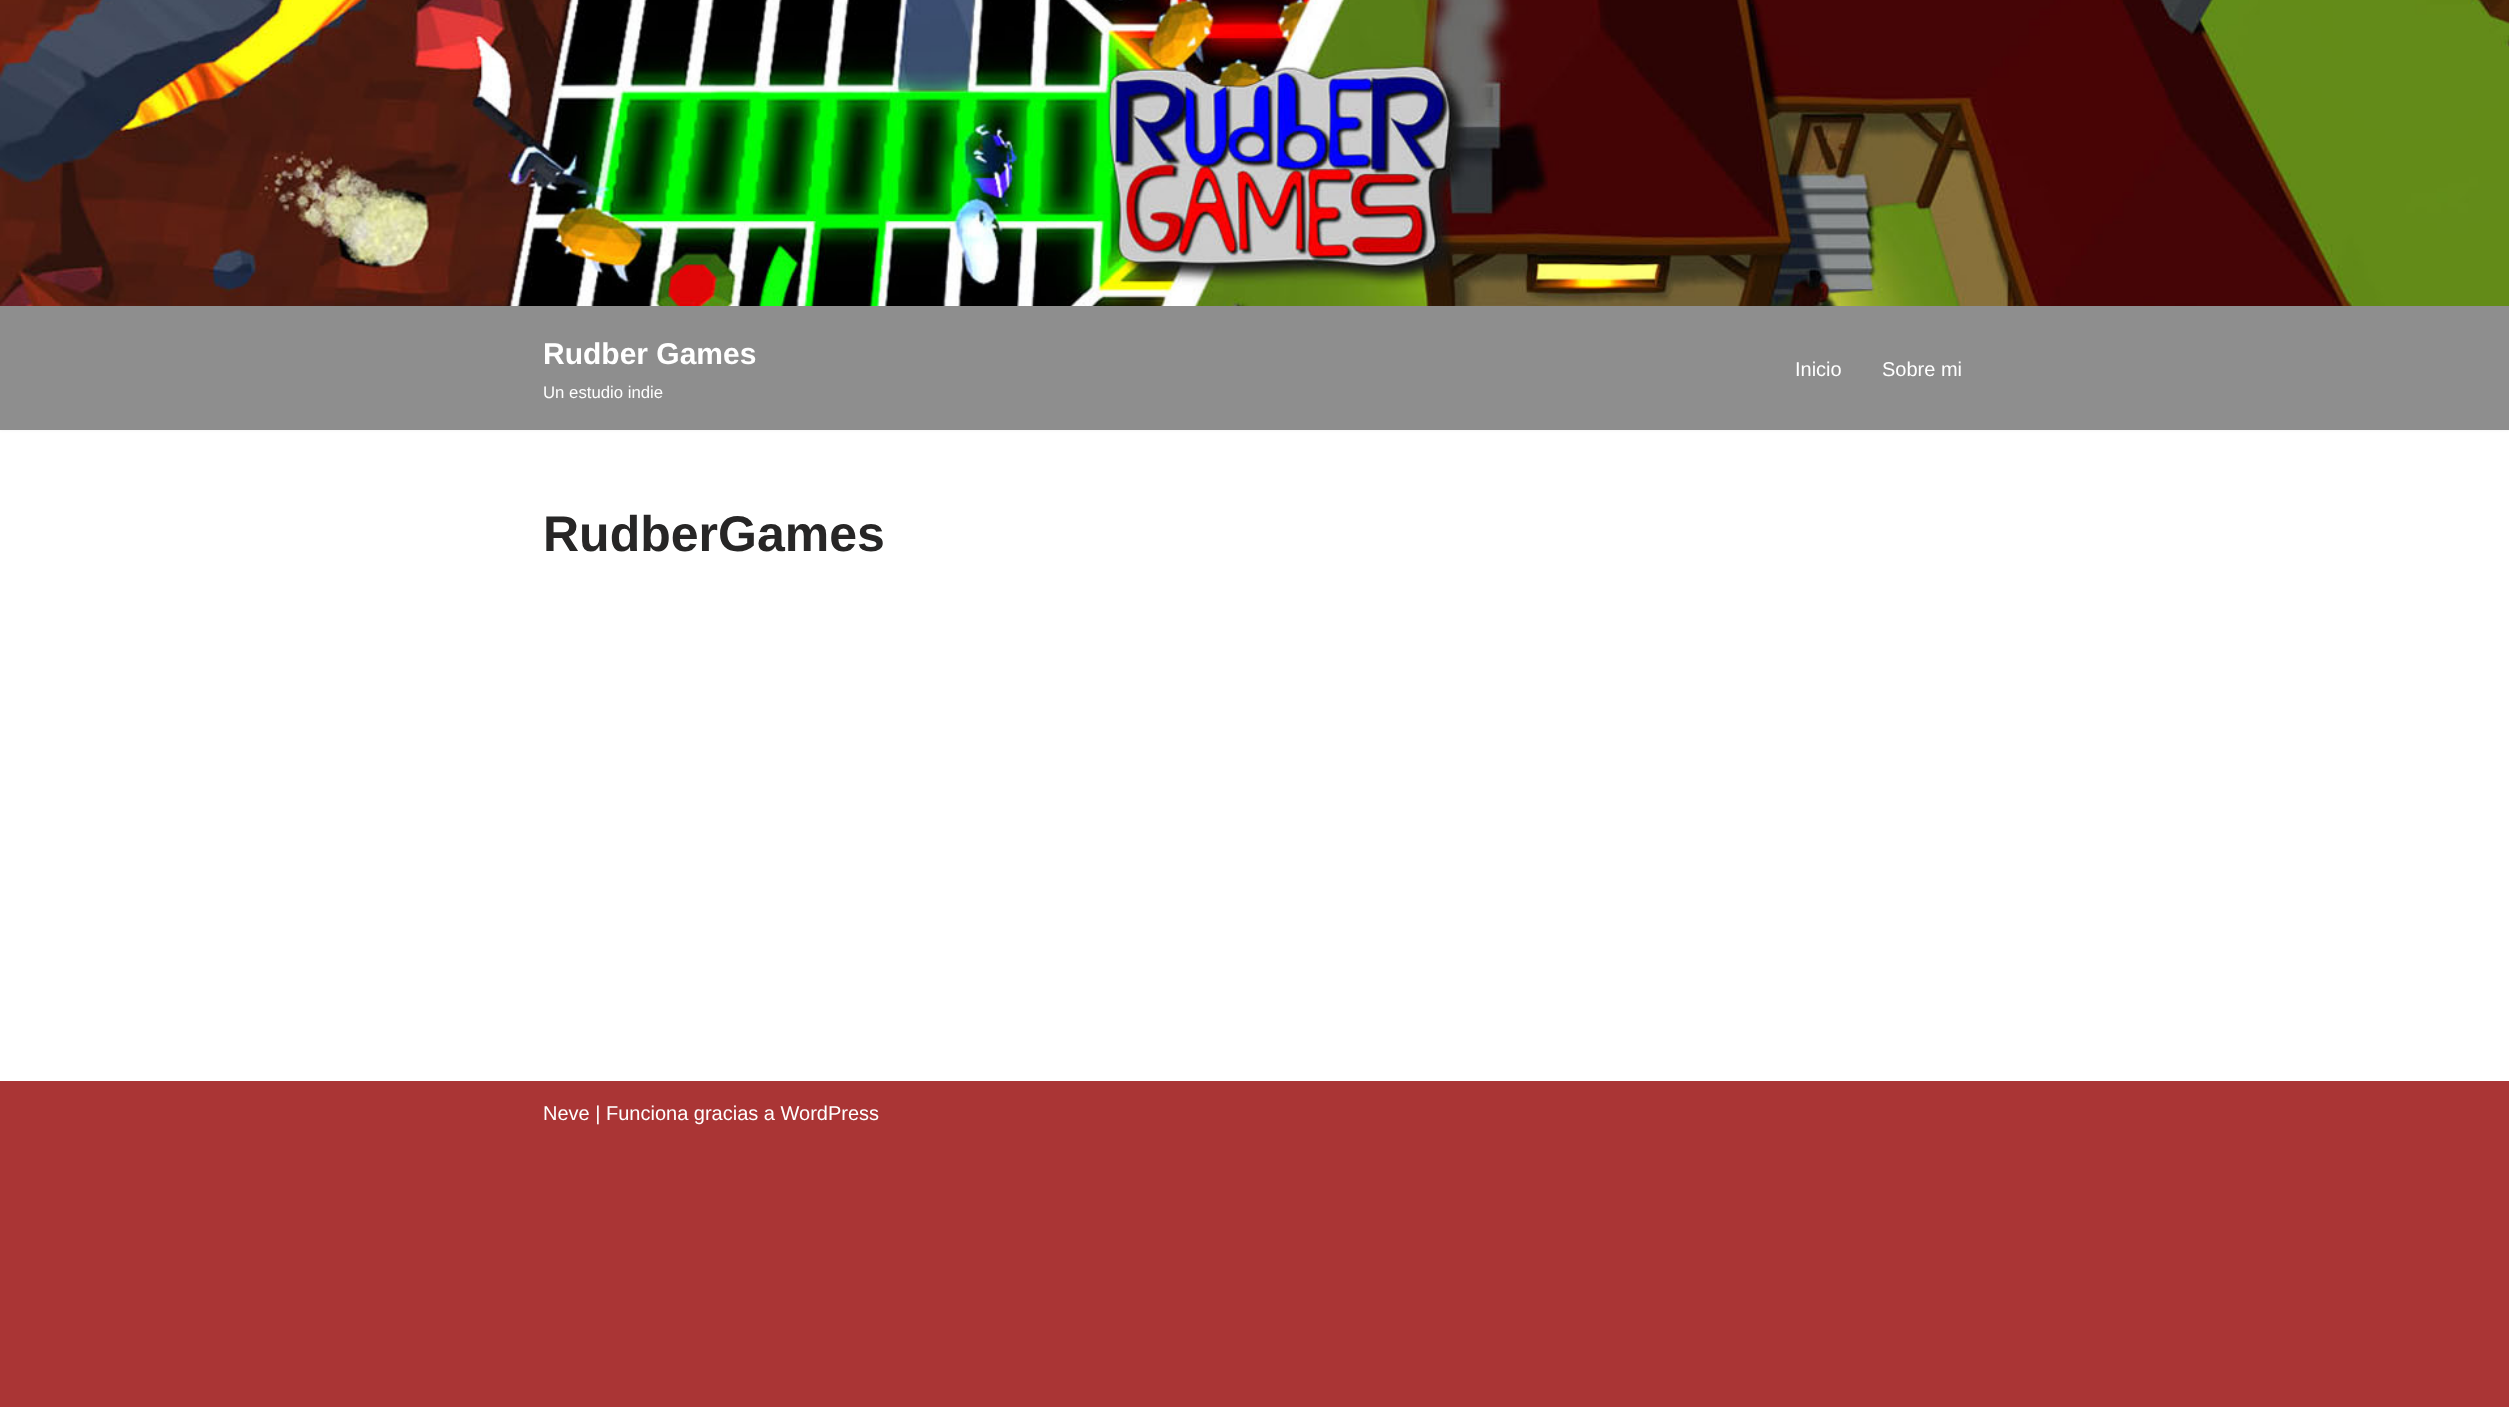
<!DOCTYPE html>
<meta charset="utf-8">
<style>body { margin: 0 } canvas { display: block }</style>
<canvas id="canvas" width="2509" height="1407"></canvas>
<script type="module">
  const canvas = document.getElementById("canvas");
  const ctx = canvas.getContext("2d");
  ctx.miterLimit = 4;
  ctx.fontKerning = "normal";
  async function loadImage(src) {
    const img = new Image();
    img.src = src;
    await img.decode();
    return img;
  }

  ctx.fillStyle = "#ffffff";
  ctx.fillRect(0, 0, 2509, 1407);
  ctx.fillStyle = "rgba(0, 0, 0, 0.1)";
  ctx.filter = "blur(2px)";
  ctx.beginPath();
  ctx.rect(0, -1, 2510, 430);
  ctx.fill();
  ctx.filter = "none";
  ctx.drawImage(await loadImage("img1.png"), 0, 0, 2509, 306);
  ctx.fillStyle = "#8e8e8e";
  ctx.fillRect(0, 306, 2509, 124);
  ctx.font = "bold 30px Liberation Sans";
  ctx.fillStyle = "#ffffff";
  ctx.fillText("Rudber Games", 543, 364);
  ctx.font = "16.75px Liberation Sans";
  ctx.fillText("Un estudio indie", 543, 398);
  ctx.font = "20px Liberation Sans";
  ctx.fillText("Inicio", 1795, 376);
  ctx.fillText("Sobre mi", 1882, 376);
  ctx.font = "bold 50px Liberation Sans";
  ctx.fillStyle = "#272626";
  ctx.fillText("RudberGames", 543, 551);
  ctx.fillStyle = "#aa3535";
  ctx.fillRect(0, 1081, 2509, 326);
  ctx.font = "20px Liberation Sans";
  ctx.fillStyle = "#ffffff";
  ctx.fillText("Neve | Funciona gracias a WordPress", 543, 1120);
</script>
